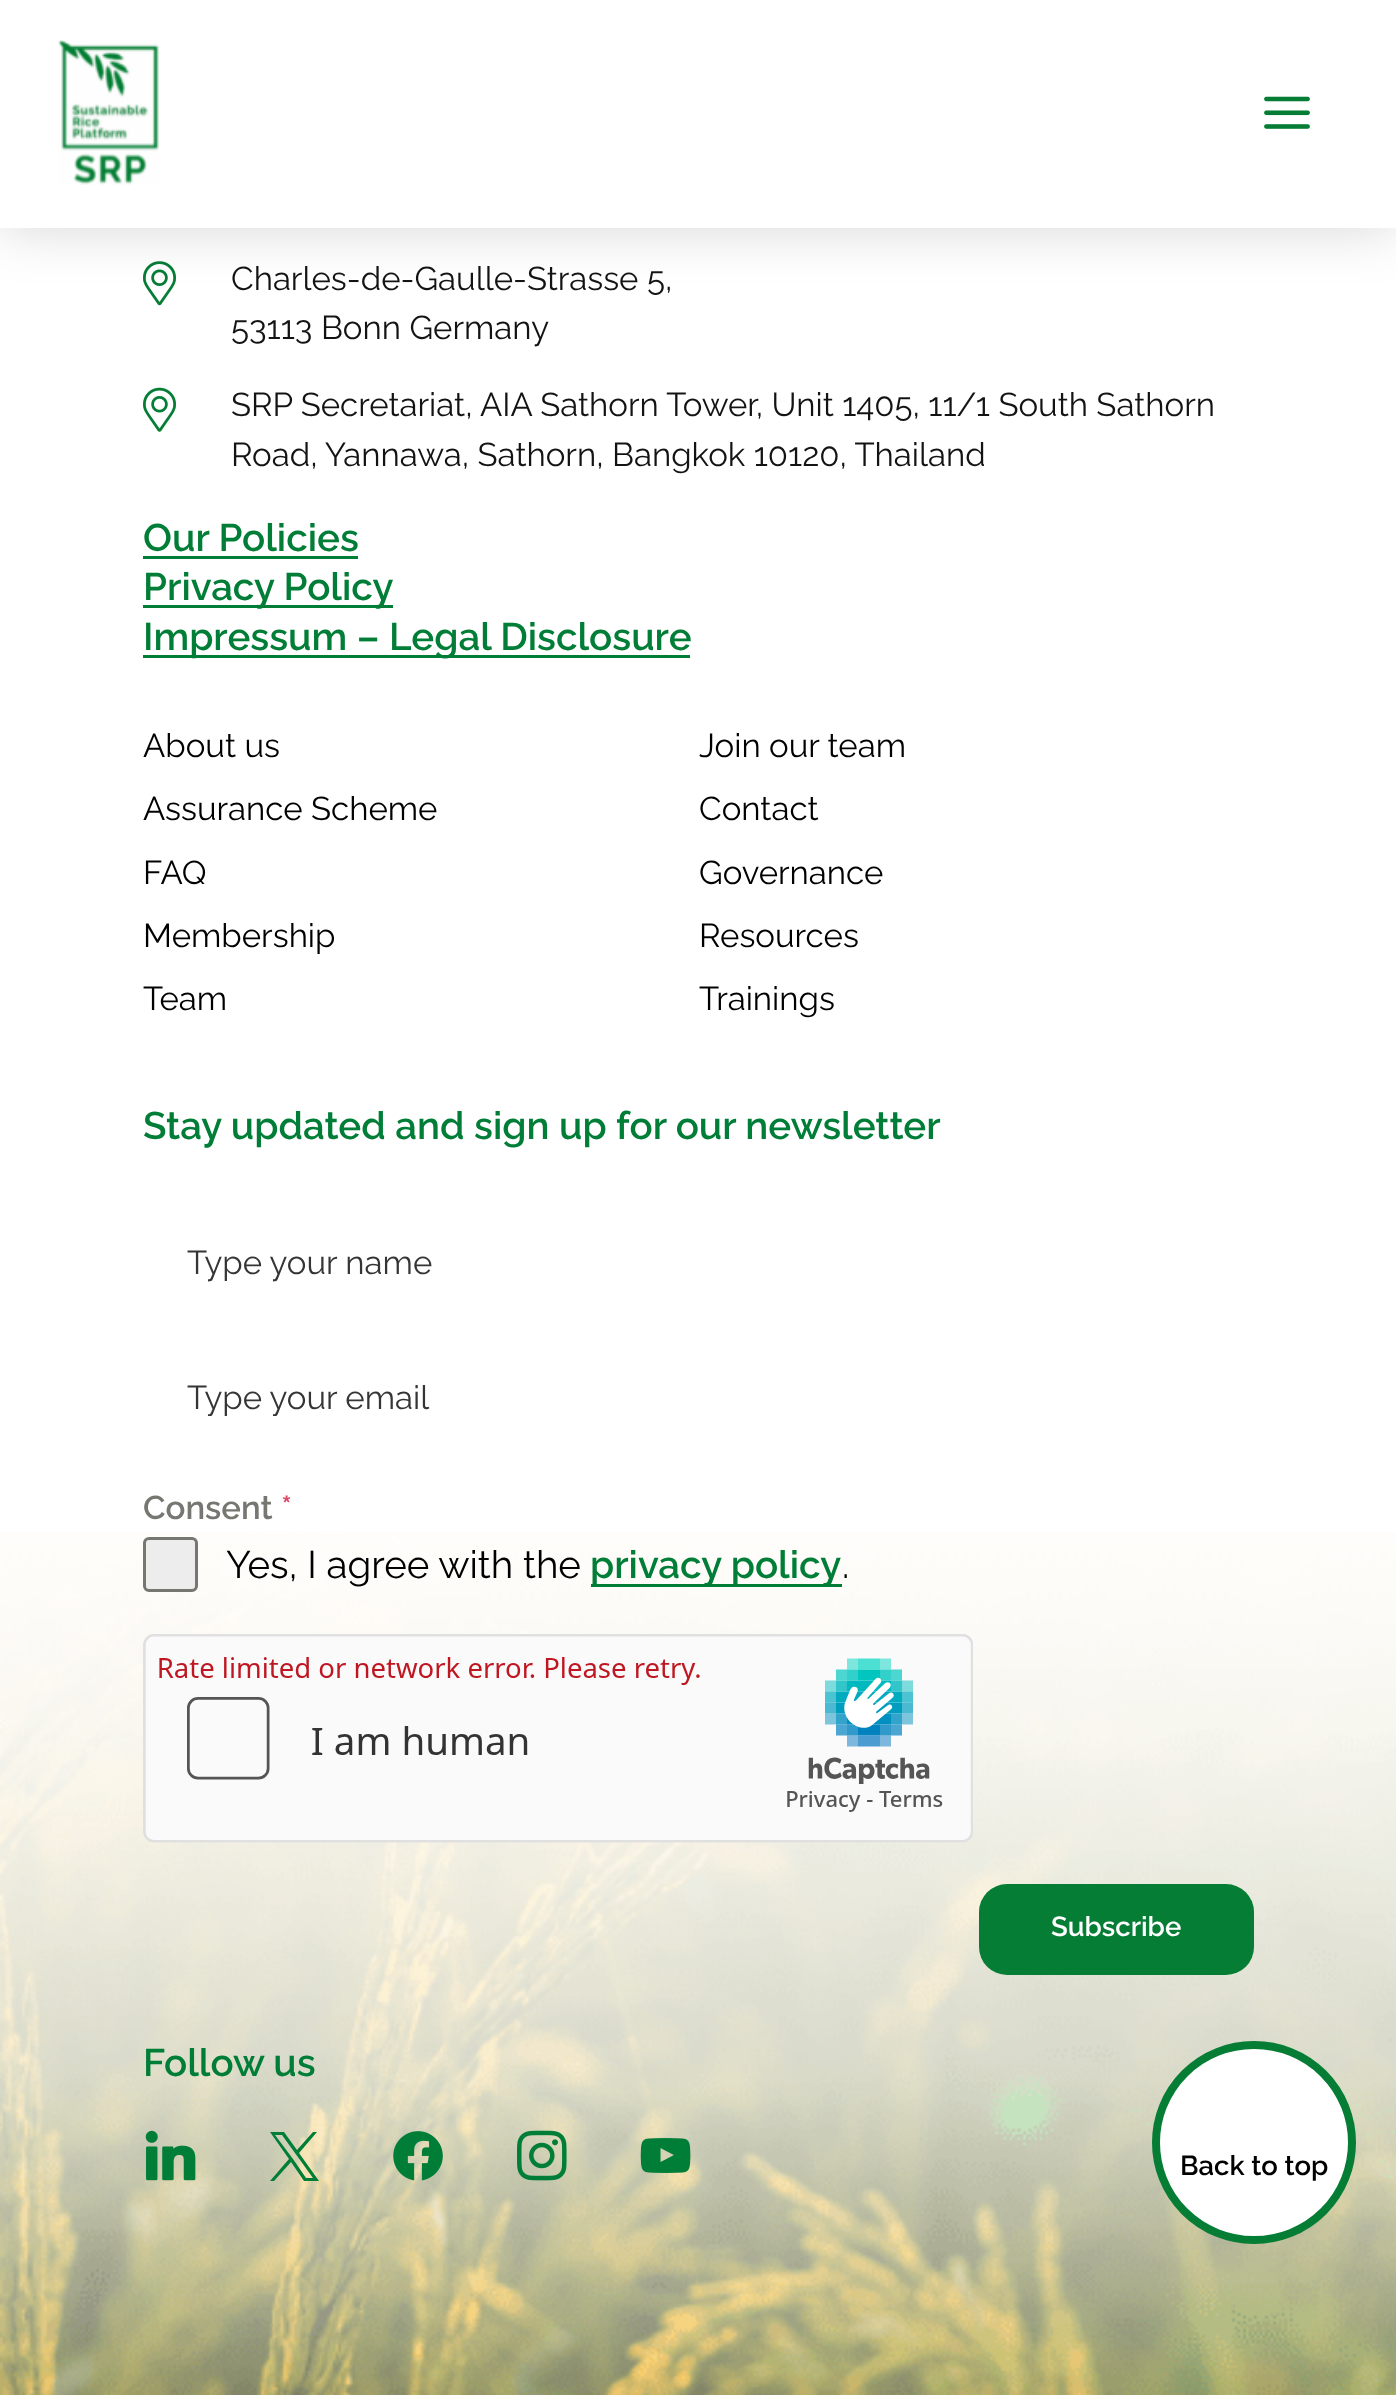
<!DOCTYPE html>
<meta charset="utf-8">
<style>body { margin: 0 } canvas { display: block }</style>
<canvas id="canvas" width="1396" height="2395"></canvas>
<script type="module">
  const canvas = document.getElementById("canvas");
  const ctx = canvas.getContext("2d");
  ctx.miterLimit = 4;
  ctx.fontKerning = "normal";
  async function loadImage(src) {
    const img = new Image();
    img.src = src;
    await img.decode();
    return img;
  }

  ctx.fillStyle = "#ffffff";
  ctx.fillRect(0, 0, 1396, 2395);
  ctx.drawImage(await loadImage("img4.png"), 143, 261, 33, 45);
  ctx.fillStyle = "rgba(0, 0, 0, 0.16)";
  ctx.filter = "blur(27.5px)";
  ctx.beginPath();
  ctx.rect(0, 0, 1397, 228);
  ctx.fill();
  ctx.filter = "none";
  ctx.fillStyle = "#ffffff";
  ctx.fillRect(0, 0, 1396, 228);
  ctx.drawImage(await loadImage("img1.png"), 58, 40, 101, 145);
  ctx.drawImage(await loadImage("img2.png"), 1264, 96, 46, 33);
  ctx.drawImage(await loadImage("img3.png"), 0, 1532, 1396, 863);
  ctx.font = "33px Raleway";
  ctx.fillStyle = "#131313";
  ctx.fillText("Charles-de-Gaulle-Strasse 5,", 231, 290);
  ctx.fillText("53113 Bonn Germany", 231, 339);
  ctx.drawImage(await loadImage("img5.png"), 143, 387, 33, 45);
  ctx.fillText("SRP Secretariat, AIA Sathorn Tower, Unit 1405, 11/1 South Sathorn", 231, 416);
  ctx.fillText("Road, Yannawa, Sathorn, Bangkok 10120, Thailand", 231, 466);
  ctx.font = "600 38.5px Raleway";
  ctx.fillStyle = "#007d36";
  ctx.fillText("Our Policies", 143, 551);
  ctx.fillRect(143, 556, 215, 3);
  ctx.fillRect(143, 605, 250, 3);
  ctx.fillText("Privacy Policy", 143, 600);
  ctx.fillRect(143, 655, 547, 3);
  ctx.fillText("Impressum – Legal Disclosure", 143, 650);
  ctx.font = "33px Raleway";
  ctx.fillStyle = "#000000";
  ctx.fillText("About us", 143, 757);
  ctx.fillText("Join our team", 699, 757);
  ctx.fillText("Assurance Scheme", 143, 820);
  ctx.fillText("Contact", 699, 820);
  ctx.fillText("FAQ", 143, 884);
  ctx.fillText("Governance", 699, 884);
  ctx.fillText("Membership", 143, 947);
  ctx.fillText("Resources", 699, 947);
  ctx.fillText("Team", 143, 1010);
  ctx.fillText("Trainings", 699, 1010);
  ctx.font = "600 38.5px Raleway";
  ctx.fillStyle = "#007d36";
  ctx.fillText("Stay updated and sign up for our newsletter", 143, 1139);
  ctx.font = "33px Raleway";
  ctx.fillStyle = "#353535";
  ctx.fillText("Type your name", 187, 1274);
  ctx.save();
  ctx.beginPath();
  ctx.rect(187, 1378, 1023, 38);
  ctx.clip();
  ctx.fillText("Type your email", 187, 1409);
  ctx.restore();
  ctx.font = "600 33px Raleway";
  ctx.fillStyle = "#777771";
  ctx.fillText("Consent", 143, 1519);
  ctx.fillStyle = "#e04562";
  ctx.fillText("*", 281, 1519);
  ctx.fillStyle = "#ededed";
  ctx.beginPath();
  ctx.roundRect(144.5, 1538.5, 52, 52, 4.5);
  ctx.fill();
  ctx.strokeStyle = "#777771";
  ctx.lineWidth = 3;
  ctx.stroke();
  ctx.font = "38.5px Raleway";
  ctx.fillStyle = "#000000";
  ctx.fillText("Yes, I agree with the", 226, 1578);
  ctx.fillStyle = "#007d36";
  ctx.fillRect(591, 1584, 251, 3);
  ctx.font = "600 38.5px Raleway";
  ctx.fillText("privacy policy", 590, 1578);
  ctx.font = "38.5px Raleway";
  ctx.fillStyle = "#000000";
  ctx.fillText(".", 842, 1578);
  ctx.drawImage(await loadImage("img6.png"), 143, 1634, 830, 209);
  ctx.fillStyle = "#057d35";
  ctx.beginPath();
  ctx.roundRect(979, 1884, 275, 91, 28);
  ctx.fill();
  ctx.font = "600 27.5px Raleway";
  ctx.fillStyle = "#ffffff";
  ctx.fillText("Subscribe", 1051, 1936);
  ctx.font = "600 38.5px Raleway";
  ctx.fillStyle = "#007d36";
  ctx.fillText("Follow us", 143, 2076);
  ctx.drawImage(await loadImage("img7.png"), 145, 2130, 51, 51);
  ctx.beginPath();
  ctx.moveTo(299, 2153);
  ctx.lineTo(317, 2132);
  ctx.lineTo(313, 2132);
  ctx.lineTo(297, 2150);
  ctx.lineTo(284, 2132);
  ctx.lineTo(270, 2132);
  ctx.lineTo(289, 2159);
  ctx.lineTo(270, 2181);
  ctx.lineTo(274, 2181);
  ctx.lineTo(291, 2162);
  ctx.lineTo(304, 2181);
  ctx.lineTo(319, 2181);
  ctx.closePath();
  ctx.moveTo(293, 2159);
  ctx.lineTo(275, 2135);
  ctx.lineTo(282, 2135);
  ctx.lineTo(313, 2178);
  ctx.lineTo(306, 2178);
  ctx.closePath();
  ctx.fill();
  ctx.drawImage(await loadImage("img8.png"), 393, 2131, 50, 50);
  ctx.drawImage(await loadImage("img9.png"), 517, 2130, 50, 51);
  ctx.drawImage(await loadImage("img10.png"), 640, 2138, 51, 35);
  ctx.fillStyle = "#ffffff";
  ctx.beginPath();
  ctx.roundRect(1156, 2045, 196, 195, 97.5);
  ctx.fill();
  ctx.strokeStyle = "#057d35";
  ctx.lineWidth = 8;
  ctx.stroke();
  ctx.font = "600 27.5px Raleway";
  ctx.fillStyle = "#000000";
  ctx.fillText("Back to top", 1180, 2175);
</script>
